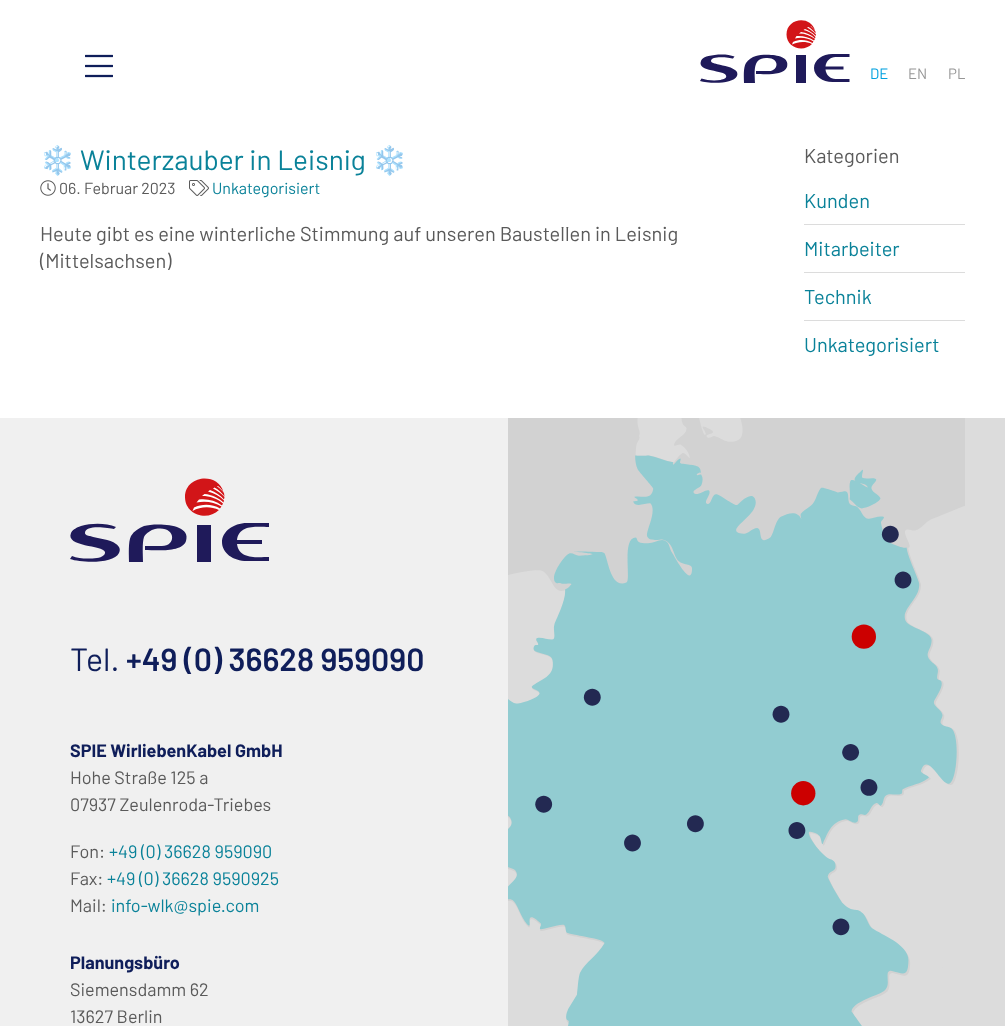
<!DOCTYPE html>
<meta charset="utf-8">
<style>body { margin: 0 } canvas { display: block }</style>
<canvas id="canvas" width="1005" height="1026"></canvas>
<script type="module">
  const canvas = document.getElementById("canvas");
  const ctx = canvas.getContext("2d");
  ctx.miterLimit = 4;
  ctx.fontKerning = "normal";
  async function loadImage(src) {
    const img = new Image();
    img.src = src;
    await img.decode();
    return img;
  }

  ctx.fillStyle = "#ffffff";
  ctx.fillRect(0, 0, 1005, 1026);
  ctx.drawImage(await loadImage("img1.png"), 85, 54, 28, 24);
  ctx.fillStyle = "#1f1a5a";
  ctx.beginPath();
  ctx.moveTo(769, 71);
  ctx.lineTo(756, 71);
  ctx.lineTo(756, 74);
  ctx.bezierCurveTo(764, 74, 784, 76, 787, 67);
  ctx.bezierCurveTo(791, 53, 763, 54, 756, 56);
  ctx.bezierCurveTo(752, 57, 748, 60, 746, 63);
  ctx.bezierCurveTo(743, 68, 744, 77, 744, 83);
  ctx.lineTo(755, 83);
  ctx.bezierCurveTo(755, 73, 752, 58, 766, 58);
  ctx.bezierCurveTo(780, 57, 779, 71, 769, 71);
  ctx.closePath();
  ctx.fill();
  ctx.fillRect(796, 55, 10, 28);
  ctx.beginPath();
  ctx.moveTo(843.5, 69.5);
  ctx.lineTo(825.5, 69.5);
  ctx.bezierCurveTo(826, 75, 830.5, 79, 835.5, 79);
  ctx.lineTo(849.5, 79);
  ctx.lineTo(849.5, 82);
  ctx.lineTo(832.5, 82);
  ctx.bezierCurveTo(822.5, 82, 814, 76, 814, 68);
  ctx.bezierCurveTo(814, 60, 822.5, 54, 832.5, 54);
  ctx.lineTo(849.5, 54);
  ctx.lineTo(849.5, 57);
  ctx.lineTo(835.5, 57);
  ctx.bezierCurveTo(830.5, 57, 826, 61, 825.5, 66.5);
  ctx.lineTo(843.5, 66.5);
  ctx.closePath();
  ctx.fill();
  ctx.beginPath();
  ctx.moveTo(711, 61);
  ctx.bezierCurveTo(711, 55, 729.5, 57.5, 733, 58.5);
  ctx.lineTo(734.5, 56.5);
  ctx.bezierCurveTo(727.5, 53.5, 716, 54, 708.5, 56);
  ctx.bezierCurveTo(706, 56.5, 702, 58, 701, 61);
  ctx.bezierCurveTo(696.5, 72, 725, 70, 726, 75.5);
  ctx.bezierCurveTo(726.5, 76.5, 726, 77.5, 725.5, 78);
  ctx.bezierCurveTo(724, 79, 722, 79.5, 720.5, 80);
  ctx.bezierCurveTo(714.5, 81, 707, 80.5, 701.5, 78.5);
  ctx.lineTo(700, 81);
  ctx.bezierCurveTo(708.5, 83.5, 733, 84.5, 737, 76);
  ctx.bezierCurveTo(738, 73.5, 737, 71, 735, 70);
  ctx.bezierCurveTo(730, 66, 721, 65.5, 715, 63.5);
  ctx.bezierCurveTo(714, 63.5, 711, 62.5, 711, 61);
  ctx.closePath();
  ctx.fill();
  ctx.fillStyle = "#d21518";
  ctx.beginPath();
  ctx.moveTo(786.5, 34.5);
  ctx.bezierCurveTo(786.5, 18, 810.5, 15, 815, 30.5);
  ctx.lineTo(811, 26);
  ctx.lineTo(810.5, 26);
  ctx.bezierCurveTo(812, 27.5, 814, 29.5, 815.5, 31.5);
  ctx.lineTo(815.5, 33.5);
  ctx.bezierCurveTo(814, 31, 811, 28.5, 808.5, 27);
  ctx.lineTo(807, 27.5);
  ctx.bezierCurveTo(810.5, 29.5, 813.5, 31.5, 816, 34.5);
  ctx.lineTo(815.5, 36);
  ctx.bezierCurveTo(813, 33, 809, 30.5, 805, 29);
  ctx.lineTo(803.5, 30);
  ctx.bezierCurveTo(808, 31, 812.5, 33.5, 815.5, 37);
  ctx.lineTo(815, 38.5);
  ctx.bezierCurveTo(811.5, 35, 806.5, 32.5, 801, 32);
  ctx.lineTo(799, 33.5);
  ctx.bezierCurveTo(805, 33.5, 810.5, 35.5, 815, 39);
  ctx.lineTo(814, 40.5);
  ctx.bezierCurveTo(809, 37, 802.5, 35.5, 796.5, 36);
  ctx.lineTo(795, 38.5);
  ctx.bezierCurveTo(801.5, 37, 808, 38, 813.5, 41.5);
  ctx.lineTo(812.5, 43);
  ctx.bezierCurveTo(806.5, 39.5, 799.5, 39, 793, 42);
  ctx.lineTo(792, 44.5);
  ctx.bezierCurveTo(798, 41.5, 805.5, 41, 812, 44);
  ctx.bezierCurveTo(803, 53, 786.5, 47.5, 786.5, 34.5);
  ctx.closePath();
  ctx.fill();
  ctx.font = "15px Barlow";
  ctx.fillStyle = "#00a0df";
  ctx.fillText("DE", 870, 79);
  ctx.fillStyle = "#969696";
  ctx.fillText("EN", 908, 79);
  ctx.fillText("PL", 948, 79);
  ctx.font = "28px Noto Color Emoji";
  ctx.fillStyle = "#0a8299";
  ctx.fillText("❄️", 40, 170);
  ctx.font = "28px Barlow";
  ctx.fillText("Winterzauber in Leisnig", 80, 170);
  ctx.font = "28px Noto Color Emoji";
  ctx.fillText("❄️", 372, 170);
  ctx.drawImage(await loadImage("img2.png"), 40, 180, 16, 16);
  ctx.font = "16px Barlow";
  ctx.fillStyle = "#5a5a5a";
  ctx.fillText("06. Februar 2023", 59, 194);
  ctx.drawImage(await loadImage("img3.png"), 189, 180, 20, 16);
  ctx.fillStyle = "#0a8299";
  ctx.fillText("Unkategorisiert", 212, 194);
  ctx.font = "20px Barlow";
  ctx.fillStyle = "#5a5a5a";
  ctx.fillText("Heute gibt es eine winterliche Stimmung auf unseren Baustellen in Leisnig", 40, 241);
  ctx.fillText("(Mittelsachsen)", 40, 268);
  ctx.fillText("Kategorien", 804, 163);
  ctx.fillStyle = "#0a8299";
  ctx.fillText("Kunden", 804, 208);
  ctx.fillStyle = "#dcdcdc";
  ctx.fillRect(804, 224, 161, 1);
  ctx.fillStyle = "#0a8299";
  ctx.fillText("Mitarbeiter", 804, 256);
  ctx.fillStyle = "#dcdcdc";
  ctx.fillRect(804, 272, 161, 1);
  ctx.fillStyle = "#0a8299";
  ctx.fillText("Technik", 804, 304);
  ctx.fillStyle = "#dcdcdc";
  ctx.fillRect(804, 320, 161, 1);
  ctx.fillStyle = "#0a8299";
  ctx.fillText("Unkategorisiert", 804, 352);
  ctx.fillStyle = "#f0f0f0";
  ctx.fillRect(0, 418, 508, 608);
  ctx.fillStyle = "#dcdcdc";
  ctx.fillRect(965, 418, 40, 608);
  ctx.fillStyle = "#fefefe";
  ctx.beginPath();
  ctx.moveTo(185, 497);
  ctx.bezierCurveTo(185, 487, 194, 478.5, 205, 478.5);
  ctx.bezierCurveTo(215.5, 478.5, 224.5, 487, 224.5, 497);
  ctx.bezierCurveTo(224.5, 507.5, 215.5, 516, 205, 516);
  ctx.bezierCurveTo(194, 516, 185, 507.5, 185, 497);
  ctx.closePath();
  ctx.fill();
  ctx.fillStyle = "#d21518";
  ctx.beginPath();
  ctx.moveTo(185, 497);
  ctx.bezierCurveTo(185, 475.5, 217.5, 471.5, 223.5, 492);
  ctx.bezierCurveTo(222, 489.5, 220, 487.5, 218, 486);
  ctx.lineTo(217, 486.5);
  ctx.bezierCurveTo(219.5, 488, 222.5, 490.5, 224, 493);
  ctx.lineTo(224.5, 496.5);
  ctx.bezierCurveTo(222, 493, 218.5, 489.5, 214.5, 487.5);
  ctx.lineTo(213, 488.5);
  ctx.bezierCurveTo(217, 490.5, 221.5, 493.5, 224.5, 497);
  ctx.lineTo(224, 499.5);
  ctx.bezierCurveTo(220.5, 495.5, 215.5, 492, 210, 490);
  ctx.lineTo(208, 491.5);
  ctx.bezierCurveTo(214, 493, 220, 496, 224, 500.5);
  ctx.lineTo(223.5, 502.5);
  ctx.bezierCurveTo(218.5, 498, 212, 494.5, 204.5, 494);
  ctx.lineTo(202, 496);
  ctx.bezierCurveTo(210, 496, 217.5, 498.5, 223, 503.5);
  ctx.lineTo(222, 505.5);
  ctx.bezierCurveTo(215.5, 500.5, 207, 498.5, 199, 499.5);
  ctx.lineTo(196.5, 502.5);
  ctx.bezierCurveTo(205, 500.5, 214.5, 502, 221.5, 506.5);
  ctx.lineTo(220, 508.5);
  ctx.bezierCurveTo(212.5, 504, 202.5, 503.5, 194, 507.5);
  ctx.lineTo(192.5, 511);
  ctx.bezierCurveTo(200.5, 506.5, 210.5, 506, 219, 510);
  ctx.bezierCurveTo(207.5, 521.5, 185, 515, 185, 497);
  ctx.closePath();
  ctx.fill();
  ctx.fillStyle = "#1f1a5a";
  ctx.beginPath();
  ctx.moveTo(85, 533);
  ctx.bezierCurveTo(85, 524, 109, 528, 114, 529);
  ctx.lineTo(116, 527);
  ctx.bezierCurveTo(106, 523, 92, 523, 81, 526);
  ctx.bezierCurveTo(78, 527, 73, 529, 71, 533);
  ctx.bezierCurveTo(65, 547, 103, 545, 105, 552);
  ctx.bezierCurveTo(105, 553, 105, 554, 104, 555);
  ctx.bezierCurveTo(102, 557, 99, 558, 97, 558);
  ctx.bezierCurveTo(89, 559, 79, 559, 72, 556);
  ctx.lineTo(70, 559);
  ctx.bezierCurveTo(82, 563, 114, 564, 119, 553);
  ctx.bezierCurveTo(121, 549, 119, 546, 116, 544);
  ctx.bezierCurveTo(110, 539, 98, 539, 90, 536);
  ctx.bezierCurveTo(88, 536, 85, 535, 85, 533);
  ctx.closePath();
  ctx.fill();
  ctx.beginPath();
  ctx.moveTo(162, 546);
  ctx.lineTo(145, 546);
  ctx.lineTo(145, 550);
  ctx.bezierCurveTo(155, 550, 182, 553, 186, 541);
  ctx.bezierCurveTo(192, 523, 155, 523, 144, 526);
  ctx.bezierCurveTo(139, 528, 134, 531, 131, 536);
  ctx.bezierCurveTo(128, 542, 129, 555, 129, 562);
  ctx.lineTo(143, 562);
  ctx.bezierCurveTo(143, 555, 142, 543, 144, 537);
  ctx.bezierCurveTo(146, 533, 151, 530, 155, 529);
  ctx.bezierCurveTo(176, 525, 177, 546, 162, 546);
  ctx.closePath();
  ctx.fill();
  ctx.fillRect(197, 525, 14, 37);
  ctx.beginPath();
  ctx.moveTo(262, 544);
  ctx.lineTo(237, 544);
  ctx.bezierCurveTo(239, 560, 258, 557, 269, 557);
  ctx.lineTo(269, 561);
  ctx.lineTo(247, 561);
  ctx.bezierCurveTo(233, 561, 222, 553, 222, 542);
  ctx.bezierCurveTo(222, 532, 233, 523, 247, 523);
  ctx.lineTo(269, 523);
  ctx.lineTo(269, 527);
  ctx.bezierCurveTo(258, 527, 239, 524, 237, 540);
  ctx.lineTo(262, 540);
  ctx.closePath();
  ctx.fill();
  ctx.font = "32px Barlow";
  ctx.fillStyle = "#0f1e5a";
  ctx.fillText("Tel.", 70, 671);
  ctx.font = "600 32px Barlow";
  ctx.fillText("+49 (0) 36628 959090", 126, 671);
  ctx.font = "bold 18px Barlow";
  ctx.fillText("SPIE WirliebenKabel GmbH", 70, 757);
  ctx.font = "18px Barlow";
  ctx.fillStyle = "#5a5a5a";
  ctx.fillText("Hohe Straße 125 a", 70, 784);
  ctx.fillText("07937 Zeulenroda-Triebes", 70, 811);
  ctx.fillText("Fon:", 70, 858);
  ctx.fillStyle = "#0a8299";
  ctx.fillText("+49 (0) 36628 959090", 109, 858);
  ctx.fillStyle = "#5a5a5a";
  ctx.fillText("Fax:", 70, 885);
  ctx.fillStyle = "#0a8299";
  ctx.fillText("+49 (0) 36628 9590925", 107, 885);
  ctx.fillStyle = "#5a5a5a";
  ctx.fillText("Mail:", 70, 912);
  ctx.fillStyle = "#0a8299";
  ctx.fillText("info-wlk@spie.com", 111, 912);
  ctx.font = "bold 18px Barlow";
  ctx.fillStyle = "#0f1e5a";
  ctx.fillText("Planungsbüro", 70, 969);
  ctx.font = "18px Barlow";
  ctx.fillStyle = "#5a5a5a";
  ctx.fillText("Siemensdamm 62", 70, 996);
  ctx.fillText("13627 Berlin", 70, 1023);
  ctx.drawImage(await loadImage("img4.png"), 508, 418, 457, 608);
</script>
